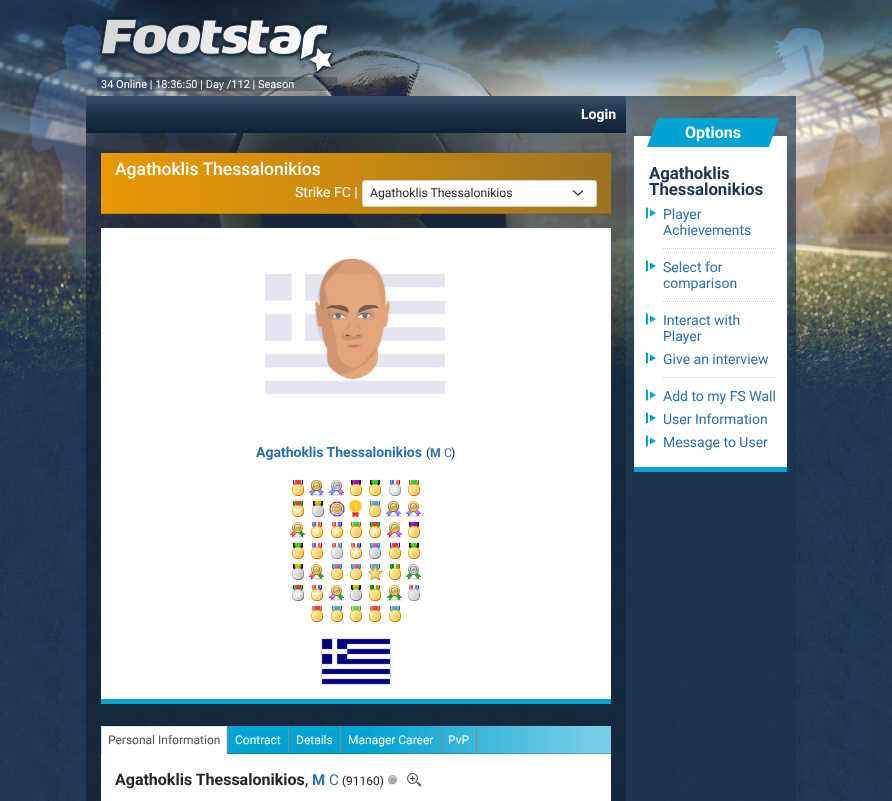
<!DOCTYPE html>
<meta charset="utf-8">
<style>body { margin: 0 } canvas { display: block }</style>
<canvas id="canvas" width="892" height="801"></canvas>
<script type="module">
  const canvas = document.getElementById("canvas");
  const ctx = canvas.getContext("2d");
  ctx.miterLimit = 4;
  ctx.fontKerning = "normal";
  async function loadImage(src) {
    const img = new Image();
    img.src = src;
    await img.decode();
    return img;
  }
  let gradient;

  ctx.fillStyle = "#ffffff";
  ctx.fillRect(0, 0, 892, 801);
  ctx.drawImage(await loadImage("img1.png"), 0, 0, 892, 801);
  ctx.drawImage(await loadImage("img2.png"), 98, 16, 238, 59);
  ctx.fillStyle = "rgba(17, 32, 48, 0.31)";
  ctx.fillRect(97, 77, 240, 14);
  ctx.font = "11px Roboto";
  ctx.fillStyle = "#ffffff";
  ctx.fillText("34 Online | 18:36:50 | Day /112 | Season", 101, 88);
  gradient = ctx.createLinearGradient(356, 96, 356, 133);
  gradient.addColorStop(0, "#355169");
  gradient.addColorStop(0.51, "#1b3249");
  gradient.addColorStop(1, "#112134");
  ctx.fillStyle = gradient;
  ctx.fillRect(86, 96, 540, 37);
  ctx.font = "bold 14px Roboto";
  ctx.fillStyle = "#ffffff";
  ctx.fillText("Login", 581, 119);
  ctx.fillStyle = "rgba(17, 32, 48, 0.64)";
  ctx.fillRect(86, 133, 540, 668);
  gradient = ctx.createLinearGradient(611, 183, 101, 183);
  gradient.addColorStop(0, "#9b7423");
  gradient.addColorStop(0.51, "#ca8a10");
  gradient.addColorStop(1, "#e79906");
  ctx.fillStyle = gradient;
  ctx.fillRect(101, 153, 510, 61);
  ctx.fillStyle = "rgba(0, 0, 0, 0.12)";
  ctx.fillRect(101, 213, 510, 1);
  ctx.font = "500 17.5px Roboto";
  ctx.fillStyle = "#ffffff";
  ctx.fillText("Agathoklis Thessalonikios", 115, 175);
  ctx.font = "14px Roboto";
  ctx.fillText("Strike FC |", 295, 197);
  ctx.beginPath();
  ctx.roundRect(362, 180, 235, 27, 4);
  ctx.fill();
  ctx.beginPath();
  ctx.moveTo(573.5, 191);
  ctx.lineTo(578, 195);
  ctx.lineTo(582.5, 191);
  ctx.strokeStyle = "#343a40";
  ctx.lineWidth = 1.5;
  ctx.lineCap = "round";
  ctx.lineJoin = "round";
  ctx.stroke();
  ctx.beginPath();
  ctx.roundRect(362.5, 180.5, 234, 26, 3.5);
  ctx.strokeStyle = "#ced4da";
  ctx.lineWidth = 1;
  ctx.lineJoin = "miter";
  ctx.stroke();
  ctx.font = "12.25px Roboto";
  ctx.fillStyle = "#212529";
  ctx.fillText("Agathoklis Thessalonikios", 370, 197);
  ctx.fillStyle = "#ffffff";
  ctx.fillRect(101, 228, 510, 471);
  ctx.fillStyle = "#00a3d2";
  ctx.fillRect(101, 699, 510, 5);
  ctx.drawImage(await loadImage("img11.png"), 265, 274, 180, 120);
  ctx.drawImage(await loadImage("img4.png"), 315, 259, 75, 121);
  ctx.drawImage(await loadImage("img5.png"), 314, 259, 62, 115);
  ctx.drawImage(await loadImage("img7.png"), 328, 308, 47, 12);
  ctx.drawImage(await loadImage("img6.png"), 327, 305, 52, 8);
  ctx.drawImage(await loadImage("img3.png"), 318, 258, 69, 55);
  ctx.drawImage(await loadImage("img8.png"), 335, 313, 33, 6);
  ctx.drawImage(await loadImage("img9.png"), 341, 321, 23, 20);
  ctx.drawImage(await loadImage("img10.png"), 346, 344, 16, 5);
  ctx.font = "bold 14px Roboto";
  ctx.fillStyle = "#2971ad";
  ctx.fillText("Agathoklis Thessalonikios", 256, 457);
  ctx.font = "12.25px Roboto";
  ctx.fillStyle = "#212529";
  ctx.fillText("(", 426, 457);
  ctx.font = "bold 12.25px Roboto";
  ctx.fillStyle = "#2971ad";
  ctx.fillText("M", 430, 457);
  ctx.font = "12.25px Roboto";
  ctx.fillText("C", 444, 457);
  ctx.fillStyle = "#212529";
  ctx.fillText(")", 451, 457);
  ctx.drawImage(await loadImage("img12.png"), 292, 480, 12, 16);
  ctx.drawImage(await loadImage("img13.png"), 309, 480, 15, 16);
  ctx.drawImage(await loadImage("img14.png"), 329, 480, 15, 16);
  ctx.drawImage(await loadImage("img15.png"), 350, 480, 12, 16);
  ctx.drawImage(await loadImage("img16.png"), 369, 480, 12, 16);
  ctx.drawImage(await loadImage("img17.png"), 389, 480, 12, 16);
  ctx.drawImage(await loadImage("img18.png"), 408, 480, 12, 16);
  ctx.drawImage(await loadImage("img19.png"), 292, 501, 12, 16);
  ctx.drawImage(await loadImage("img20.png"), 312, 501, 12, 16);
  ctx.drawImage(await loadImage("img21.png"), 329, 501, 16, 16);
  ctx.drawImage(await loadImage("img22.png"), 348, 499, 15, 19);
  ctx.drawImage(await loadImage("img23.png"), 369, 501, 12, 16);
  ctx.drawImage(await loadImage("img13.png"), 386, 501, 15, 16);
  ctx.drawImage(await loadImage("img24.png"), 406, 501, 15, 16);
  ctx.drawImage(await loadImage("img25.png"), 290, 522, 15, 16);
  ctx.drawImage(await loadImage("img26.png"), 311, 522, 12, 16);
  ctx.drawImage(await loadImage("img27.png"), 331, 522, 12, 16);
  ctx.drawImage(await loadImage("img18.png"), 350, 522, 12, 16);
  ctx.drawImage(await loadImage("img19.png"), 369, 522, 12, 16);
  ctx.drawImage(await loadImage("img28.png"), 387, 522, 15, 16);
  ctx.drawImage(await loadImage("img15.png"), 408, 522, 12, 16);
  ctx.drawImage(await loadImage("img16.png"), 292, 543, 12, 16);
  ctx.drawImage(await loadImage("img29.png"), 311, 543, 12, 16);
  ctx.drawImage(await loadImage("img30.png"), 331, 543, 12, 16);
  ctx.drawImage(await loadImage("img27.png"), 350, 543, 12, 16);
  ctx.drawImage(await loadImage("img31.png"), 369, 543, 12, 16);
  ctx.drawImage(await loadImage("img12.png"), 389, 543, 12, 16);
  ctx.drawImage(await loadImage("img16.png"), 408, 543, 12, 16);
  ctx.drawImage(await loadImage("img20.png"), 292, 564, 12, 16);
  ctx.drawImage(await loadImage("img25.png"), 309, 564, 15, 16);
  ctx.drawImage(await loadImage("img32.png"), 331, 564, 12, 16);
  ctx.drawImage(await loadImage("img32.png"), 350, 564, 12, 16);
  ctx.drawImage(await loadImage("img33.png"), 368, 564, 15, 16);
  ctx.drawImage(await loadImage("img34.png"), 389, 564, 12, 16);
  ctx.drawImage(await loadImage("img35.png"), 406, 564, 15, 16);
  ctx.drawImage(await loadImage("img36.png"), 292, 585, 12, 16);
  ctx.drawImage(await loadImage("img27.png"), 311, 585, 12, 16);
  ctx.drawImage(await loadImage("img37.png"), 329, 585, 15, 16);
  ctx.drawImage(await loadImage("img20.png"), 350, 585, 12, 16);
  ctx.drawImage(await loadImage("img34.png"), 369, 585, 12, 16);
  ctx.drawImage(await loadImage("img38.png"), 387, 585, 15, 16);
  ctx.drawImage(await loadImage("img30.png"), 408, 585, 12, 16);
  ctx.drawImage(await loadImage("img39.png"), 311, 606, 12, 16);
  ctx.drawImage(await loadImage("img23.png"), 331, 606, 12, 16);
  ctx.drawImage(await loadImage("img40.png"), 350, 606, 12, 16);
  ctx.drawImage(await loadImage("img39.png"), 369, 606, 12, 16);
  ctx.drawImage(await loadImage("img23.png"), 389, 606, 12, 16);
  ctx.strokeStyle = "#dee2e6";
  ctx.strokeRect(321.5, 638.5, 69, 46);
  ctx.drawImage(await loadImage("img41.png"), 322, 639, 68, 45);
  ctx.fillStyle = "#ffffff";
  ctx.fillRect(101, 754, 510, 47);
  gradient = ctx.createLinearGradient(101, 740, 611, 740);
  gradient.addColorStop(0, "#00a3d2");
  gradient.addColorStop(0.51, "#00a3d2");
  gradient.addColorStop(1, "#7dd0e8");
  ctx.fillStyle = gradient;
  ctx.fillRect(227, 726, 384, 28);
  ctx.fillStyle = "rgba(0, 0, 0, 0.18)";
  ctx.fillRect(227, 753, 384, 1);
  ctx.fillStyle = "#898989";
  ctx.fillRect(227, 726, 1, 27);
  ctx.fillStyle = "#ffffff";
  ctx.fillRect(102, 727, 124, 26);
  ctx.fillStyle = "#dee2e6";
  ctx.fillRect(101, 726, 126, 1);
  ctx.fillRect(226, 726, 1, 28);
  ctx.fillStyle = "#ffffff";
  ctx.fillRect(101, 753, 126, 1);
  ctx.fillStyle = "#dee2e6";
  ctx.fillRect(101, 726, 1, 28);
  ctx.font = "12px Roboto";
  ctx.fillStyle = "#495057";
  ctx.fillText("Personal Information", 108, 744);
  ctx.fillStyle = "#898989";
  ctx.fillRect(288, 726, 1, 27);
  ctx.fillStyle = "#ffffff";
  ctx.fillText("Contract", 235, 744);
  ctx.fillStyle = "#898989";
  ctx.fillRect(340, 726, 1, 27);
  ctx.fillStyle = "#ffffff";
  ctx.fillText("Details", 296, 744);
  ctx.fillStyle = "#898989";
  ctx.fillRect(440, 726, 1, 27);
  ctx.fillStyle = "#ffffff";
  ctx.fillText("Manager Career", 348, 744);
  ctx.fillStyle = "#898989";
  ctx.fillRect(476, 726, 1, 27);
  ctx.fillStyle = "#ffffff";
  ctx.fillText("PvP", 448, 744);
  ctx.font = "bold 16px Roboto";
  ctx.fillStyle = "#212529";
  ctx.fillText("Agathoklis Thessalonikios", 115, 785);
  ctx.font = "bold 15px Roboto";
  ctx.fillStyle = "#2971ad";
  ctx.fillText("M", 312, 785);
  ctx.font = "15px Roboto";
  ctx.fillText("C", 329, 785);
  ctx.font = "12px Roboto";
  ctx.fillStyle = "#212529";
  ctx.fillText("(91160)", 342, 785);
  ctx.drawImage(await loadImage("img42.png"), 388, 775, 9, 10);
  ctx.font = "16px Roboto";
  ctx.fillText(",", 305, 785);
  ctx.drawImage(await loadImage("img43.png"), 407, 773, 15, 14);
  ctx.fillStyle = "rgba(28, 51, 75, 0.66)";
  ctx.fillRect(626, 96, 170, 705);
  ctx.fillStyle = "#ffffff";
  ctx.fillRect(634, 136, 153, 331);
  ctx.fillStyle = "#00a3d2";
  ctx.fillRect(634, 467, 153, 5);
  ctx.beginPath();
  ctx.moveTo(658, 118);
  ctx.lineTo(779, 118);
  ctx.lineTo(769, 147);
  ctx.lineTo(647, 147);
  ctx.closePath();
  ctx.fill();
  ctx.font = "bold 16px Roboto";
  ctx.fillStyle = "#ffffff";
  ctx.fillText("Options", 685, 138);
  ctx.font = "bold 16.75px Roboto";
  ctx.fillStyle = "#1c334b";
  ctx.fillText("Agathoklis", 649, 179);
  ctx.fillText("Thessalonikios", 649, 195);
  ctx.drawImage(await loadImage("img44.png"), 646, 207, 10, 12);
  ctx.font = "14px Roboto";
  ctx.fillStyle = "#2971ad";
  ctx.fillText("Player", 663, 219);
  ctx.fillText("Achievements", 663, 235);
  ctx.beginPath();
  ctx.moveTo(663, 248.5);
  ctx.lineTo(777, 248.5);
  ctx.strokeStyle = "#cccccc";
  ctx.lineCap = "butt";
  ctx.setLineDash([1, 1]);
  ctx.stroke();
  ctx.drawImage(await loadImage("img44.png"), 646, 260, 10, 12);
  ctx.fillText("Select for", 663, 272);
  ctx.fillText("comparison", 663, 288);
  ctx.beginPath();
  ctx.moveTo(663, 301.5);
  ctx.lineTo(777, 301.5);
  ctx.stroke();
  ctx.drawImage(await loadImage("img44.png"), 646, 313, 10, 12);
  ctx.fillText("Interact with", 663, 325);
  ctx.fillText("Player", 663, 341);
  ctx.drawImage(await loadImage("img44.png"), 646, 352, 10, 12);
  ctx.fillText("Give an interview", 663, 364);
  ctx.beginPath();
  ctx.moveTo(663, 377.5);
  ctx.lineTo(777, 377.5);
  ctx.stroke();
  ctx.drawImage(await loadImage("img44.png"), 646, 389, 10, 12);
  ctx.fillText("Add to my FS Wall", 663, 401);
  ctx.drawImage(await loadImage("img44.png"), 646, 412, 10, 12);
  ctx.fillText("User Information", 663, 424);
  ctx.drawImage(await loadImage("img44.png"), 646, 435, 10, 12);
  ctx.fillText("Message to User", 663, 447);
</script>
